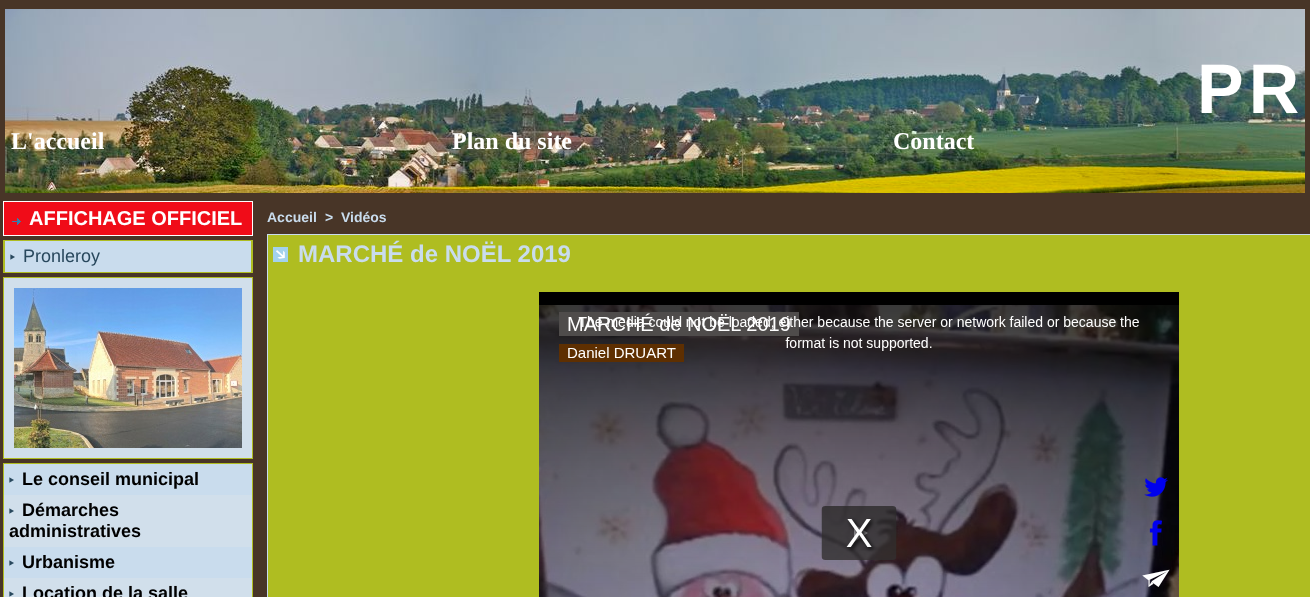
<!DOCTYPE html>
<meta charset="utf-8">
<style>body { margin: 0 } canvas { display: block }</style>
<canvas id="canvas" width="1310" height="597"></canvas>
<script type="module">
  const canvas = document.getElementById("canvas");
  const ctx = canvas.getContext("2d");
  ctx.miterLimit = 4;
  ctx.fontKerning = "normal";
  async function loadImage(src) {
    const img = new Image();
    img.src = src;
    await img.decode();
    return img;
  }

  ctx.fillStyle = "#483527";
  ctx.fillRect(0, 0, 1310, 597);
  ctx.drawImage(await loadImage("img1.png"), 5, 9, 1300, 184);
  ctx.letterSpacing = "5px";
  ctx.font = "bold 70px Liberation Sans";
  ctx.fillStyle = "#ffffff";
  ctx.fillText("PR", 1197, 113);
  ctx.letterSpacing = "0px";
  ctx.font = "bold 24px Liberation Serif";
  ctx.fillText("L'accueil", 11, 149);
  ctx.fillText("Plan du site", 452, 149);
  ctx.fillText("Contact", 893, 149);
  ctx.fillRect(3, 201, 250, 1);
  ctx.fillStyle = "#f00c18";
  ctx.fillRect(4, 202, 248, 33);
  ctx.fillStyle = "#ffffff";
  ctx.fillRect(252, 202, 1, 34);
  ctx.fillRect(3, 235, 250, 1);
  ctx.fillRect(3, 202, 1, 34);
  ctx.drawImage(await loadImage("img2.png"), 12, 218, 9, 7);
  ctx.font = "bold 20px Liberation Sans";
  ctx.fillText("AFFICHAGE OFFICIEL", 29, 225);
  ctx.fillStyle = "#afbd21";
  ctx.fillRect(3, 240, 250, 1);
  ctx.fillRect(252, 240, 1, 33);
  ctx.fillRect(3, 240, 1, 33);
  ctx.fillStyle = "#c9dced";
  ctx.fillRect(5, 241, 246, 31);
  ctx.fillStyle = "#afbd21";
  ctx.fillRect(251, 241, 1, 32);
  ctx.fillRect(4, 272, 248, 1);
  ctx.fillRect(4, 241, 1, 32);
  ctx.drawImage(await loadImage("img3.png"), 10, 254, 5, 6);
  ctx.font = "18px Liberation Sans";
  ctx.fillStyle = "#28485d";
  ctx.fillText("Pronleroy", 23, 262);
  ctx.fillStyle = "#afbd21";
  ctx.fillRect(3, 277, 250, 1);
  ctx.fillStyle = "#d1dfeb";
  ctx.fillRect(4, 278, 248, 180);
  ctx.fillStyle = "#afbd21";
  ctx.fillRect(252, 278, 1, 181);
  ctx.fillRect(3, 458, 250, 1);
  ctx.fillRect(3, 278, 1, 181);
  ctx.drawImage(await loadImage("img4.png"), 14, 288, 228, 160);
  ctx.strokeStyle = "#afbd21";
  ctx.strokeRect(3.5, 463.5, 249, 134);
  ctx.fillStyle = "#c9dced";
  ctx.fillRect(4, 464, 248, 31);
  ctx.drawImage(await loadImage("img3.png"), 9, 477, 5, 6);
  ctx.font = "bold 18px Liberation Sans";
  ctx.fillStyle = "#000000";
  ctx.fillText("Le conseil municipal", 22, 485);
  ctx.fillStyle = "#d1dfeb";
  ctx.fillRect(4, 495, 248, 52);
  ctx.drawImage(await loadImage("img5.png"), 9, 508, 5, 6);
  ctx.fillStyle = "#000000";
  ctx.fillText("Démarches", 22, 516);
  ctx.fillText("administratives", 9, 537);
  ctx.fillStyle = "#c9dced";
  ctx.fillRect(4, 547, 248, 31);
  ctx.drawImage(await loadImage("img3.png"), 9, 560, 5, 6);
  ctx.fillStyle = "#000000";
  ctx.fillText("Urbanisme", 22, 568);
  ctx.fillStyle = "#d1dfeb";
  ctx.fillRect(4, 578, 248, 19);
  ctx.drawImage(await loadImage("img5.png"), 9, 591, 5, 6);
  ctx.fillStyle = "#000000";
  ctx.fillText("Location de la salle", 22, 599);
  ctx.font = "bold 14px Liberation Sans";
  ctx.fillStyle = "#c9dced";
  ctx.fillText("Accueil", 267, 222);
  ctx.fillText(">", 325, 222);
  ctx.fillText("Vidéos", 341, 222);
  ctx.strokeStyle = "#c9dced";
  ctx.strokeRect(267.5, 234.5, 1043, 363);
  ctx.fillStyle = "#afbd21";
  ctx.fillRect(268, 235, 1042, 362);
  ctx.drawImage(await loadImage("img6.png"), 273, 247, 15, 15);
  ctx.font = "bold 24px Liberation Sans";
  ctx.fillStyle = "#c9dced";
  ctx.fillText("MARCHÉ de NOËL 2019", 298, 262);
  ctx.drawImage(await loadImage("img7.png"), 539, 292, 640, 305);
</script>
